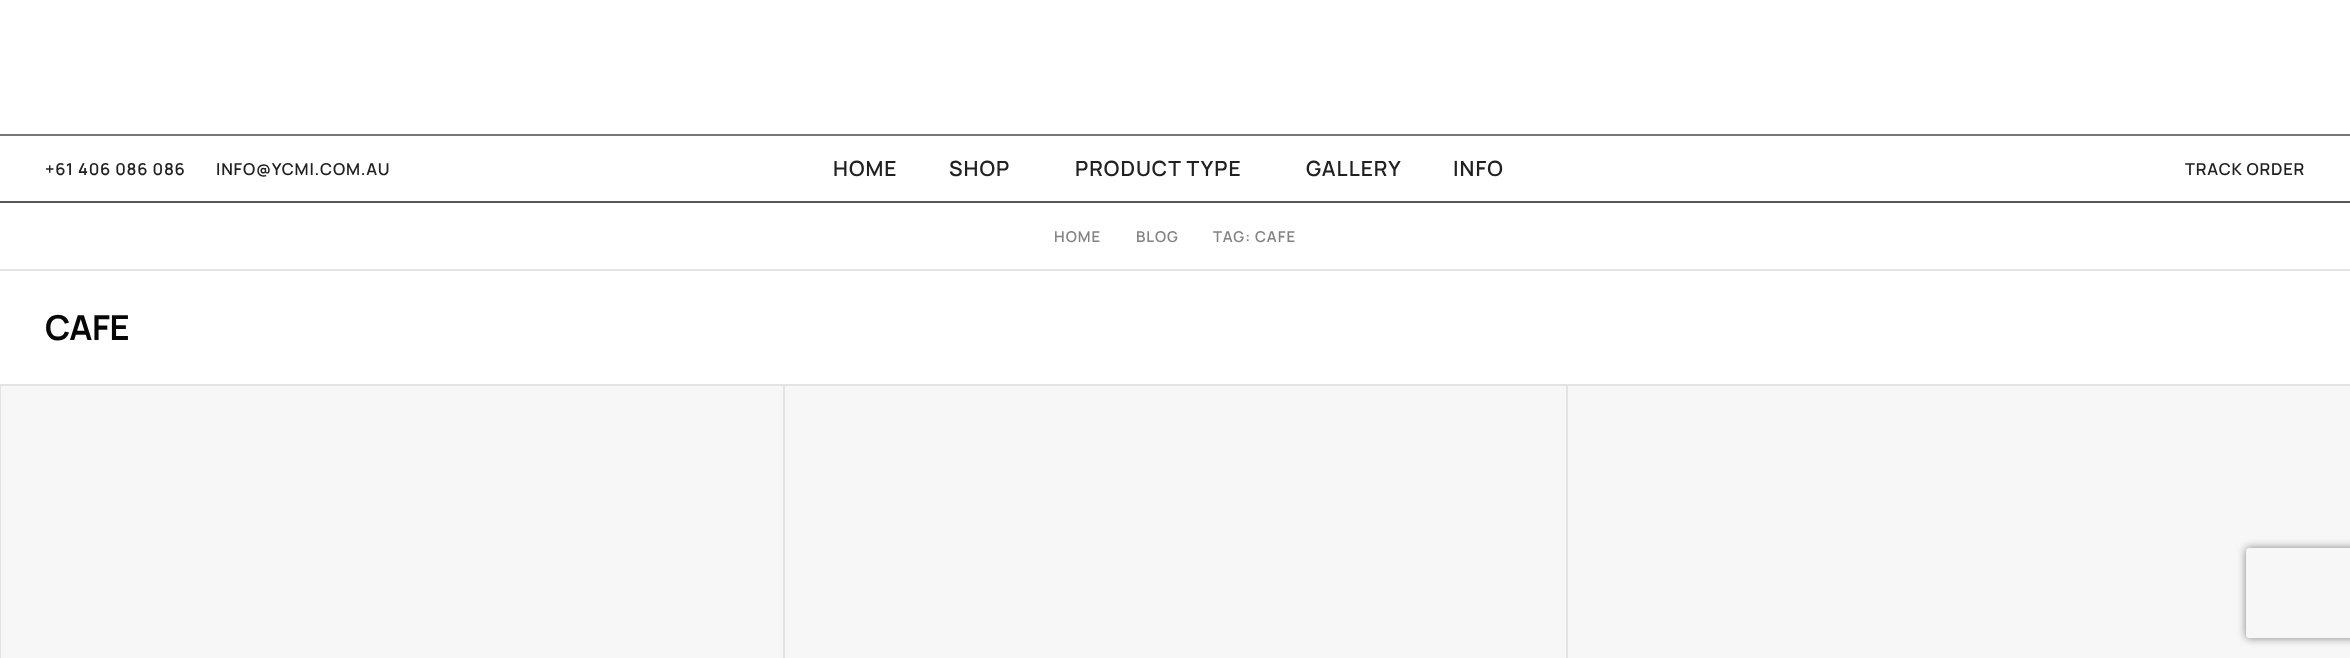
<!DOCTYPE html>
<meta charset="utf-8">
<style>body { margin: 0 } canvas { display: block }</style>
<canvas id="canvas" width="2350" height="658"></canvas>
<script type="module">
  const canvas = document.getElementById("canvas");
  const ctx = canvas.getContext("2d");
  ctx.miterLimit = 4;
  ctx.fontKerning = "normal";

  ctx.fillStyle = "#ffffff";
  ctx.fillRect(0, 0, 2350, 658);
  ctx.fillStyle = "#787878";
  ctx.fillRect(0, 134, 2350, 2);
  ctx.letterSpacing = "0.8px";
  ctx.font = "600 16.5px Manrope";
  ctx.fillStyle = "#212121";
  ctx.fillText("+61 406 086 086", 45, 175);
  ctx.fillText("INFO@YCMI.COM.AU", 216, 175);
  ctx.letterSpacing = "1px";
  ctx.font = "600 21px Manrope";
  ctx.fillText("HOME", 833, 176);
  ctx.fillText("SHOP", 949, 176);
  ctx.fillText("PRODUCT TYPE", 1075, 176);
  ctx.fillText("GALLERY", 1306, 176);
  ctx.fillText("INFO", 1453, 176);
  ctx.letterSpacing = "0.8px";
  ctx.font = "600 16.5px Manrope";
  ctx.fillText("TRACK ORDER", 2185, 175);
  ctx.fillStyle = "#565656";
  ctx.fillRect(0, 201, 2350, 2);
  ctx.fillStyle = "#e3e3e3";
  ctx.fillRect(0, 269, 2350, 2);
  ctx.letterSpacing = "1px";
  ctx.font = "600 15px Manrope";
  ctx.fillStyle = "#838383";
  ctx.fillText("HOME", 1054, 242);
  ctx.fillText("BLOG", 1136, 242);
  ctx.fillText("TAG: CAFE", 1213, 242);
  ctx.letterSpacing = "-0.5px";
  ctx.font = "bold 34.5px Manrope";
  ctx.fillStyle = "#070707";
  ctx.fillText("CAFE", 45, 340);
  ctx.fillStyle = "#e3e3e3";
  ctx.fillRect(1568, 384, 782, 2);
  ctx.fillStyle = "#f7f7f7";
  ctx.beginPath();
  ctx.rect(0, 385, 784, 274);
  ctx.fill();
  ctx.strokeStyle = "#e3e3e3";
  ctx.lineWidth = 2;
  ctx.stroke();
  ctx.beginPath();
  ctx.rect(784, 385, 783, 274);
  ctx.fill();
  ctx.stroke();
  ctx.fillRect(1568, 386, 782, 272);
  ctx.save();
  ctx.beginPath();
  ctx.moveTo(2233, 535);
  ctx.lineTo(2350, 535);
  ctx.lineTo(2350, 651);
  ctx.lineTo(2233, 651);
  ctx.closePath();
  ctx.moveTo(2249, 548);
  ctx.lineTo(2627, 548);
  ctx.bezierCurveTo(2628.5, 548, 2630, 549.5, 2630, 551);
  ctx.lineTo(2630, 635);
  ctx.bezierCurveTo(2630, 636.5, 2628.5, 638, 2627, 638);
  ctx.lineTo(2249, 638);
  ctx.bezierCurveTo(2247.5, 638, 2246, 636.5, 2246, 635);
  ctx.lineTo(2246, 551);
  ctx.bezierCurveTo(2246, 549.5, 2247.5, 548, 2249, 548);
  ctx.closePath();
  ctx.clip("evenodd");
  ctx.fillStyle = "#808080";
  ctx.filter = "blur(4px)";
  ctx.beginPath();
  ctx.roundRect(2246, 548, 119, 90, 3);
  ctx.fill();
  ctx.filter = "none";
  ctx.restore();
</script>
